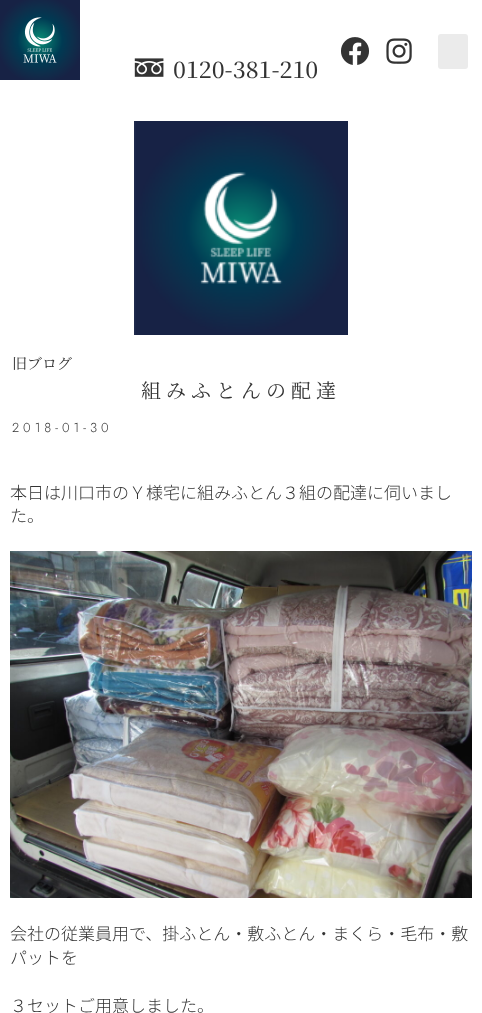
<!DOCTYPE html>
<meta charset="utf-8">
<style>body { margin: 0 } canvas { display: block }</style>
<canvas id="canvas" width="482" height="1013"></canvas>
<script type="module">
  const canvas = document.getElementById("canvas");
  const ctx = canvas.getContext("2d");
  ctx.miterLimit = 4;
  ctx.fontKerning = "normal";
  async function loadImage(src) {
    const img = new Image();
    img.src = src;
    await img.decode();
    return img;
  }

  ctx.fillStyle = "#ffffff";
  ctx.fillRect(0, 0, 482, 1013);
  ctx.drawImage(await loadImage("img1.png"), 0, 0, 80, 80);
  ctx.drawImage(await loadImage("img2.png"), 341, 37, 28, 28);
  ctx.drawImage(await loadImage("img3.png"), 386, 38, 26, 26);
  ctx.fillStyle = "#ebebeb";
  ctx.beginPath();
  ctx.roundRect(438, 34, 30, 35, 3);
  ctx.fill();
  ctx.drawImage(await loadImage("img4.png"), 134, 58, 30, 19);
  ctx.font = "500 23px Noto Serif JP";
  ctx.fillStyle = "#333333";
  ctx.fillText("0120-381-210", 173, 78);
  ctx.drawImage(await loadImage("img5.png"), 134, 121, 214, 214);
  ctx.font = "15px Noto Serif JP";
  ctx.fillText("旧ブログ", 12, 369);
  ctx.letterSpacing = "5px";
  ctx.font = "20px Noto Serif JP";
  ctx.fillText("組みふとんの配達", 141, 398);
  ctx.letterSpacing = "4px";
  ctx.font = "300 13px Jost";
  ctx.fillText("2018-01-30", 12, 432);
  ctx.letterSpacing = "0px";
  ctx.font = "300 17px Noto Sans JP";
  ctx.fillText("本日は川口市のＹ様宅に組みふとん３組の配達に伺いまし", 10, 499);
  ctx.fillText("た。", 10, 522);
  ctx.drawImage(await loadImage("img6.png"), 10, 551, 462, 347);
  ctx.fillText("会社の従業員用で、掛ふとん・敷ふとん・まくら・毛布・敷", 10, 940);
  ctx.fillText("パットを", 10, 964);
  ctx.fillText("３セットご用意しました。", 10, 1012);
</script>
